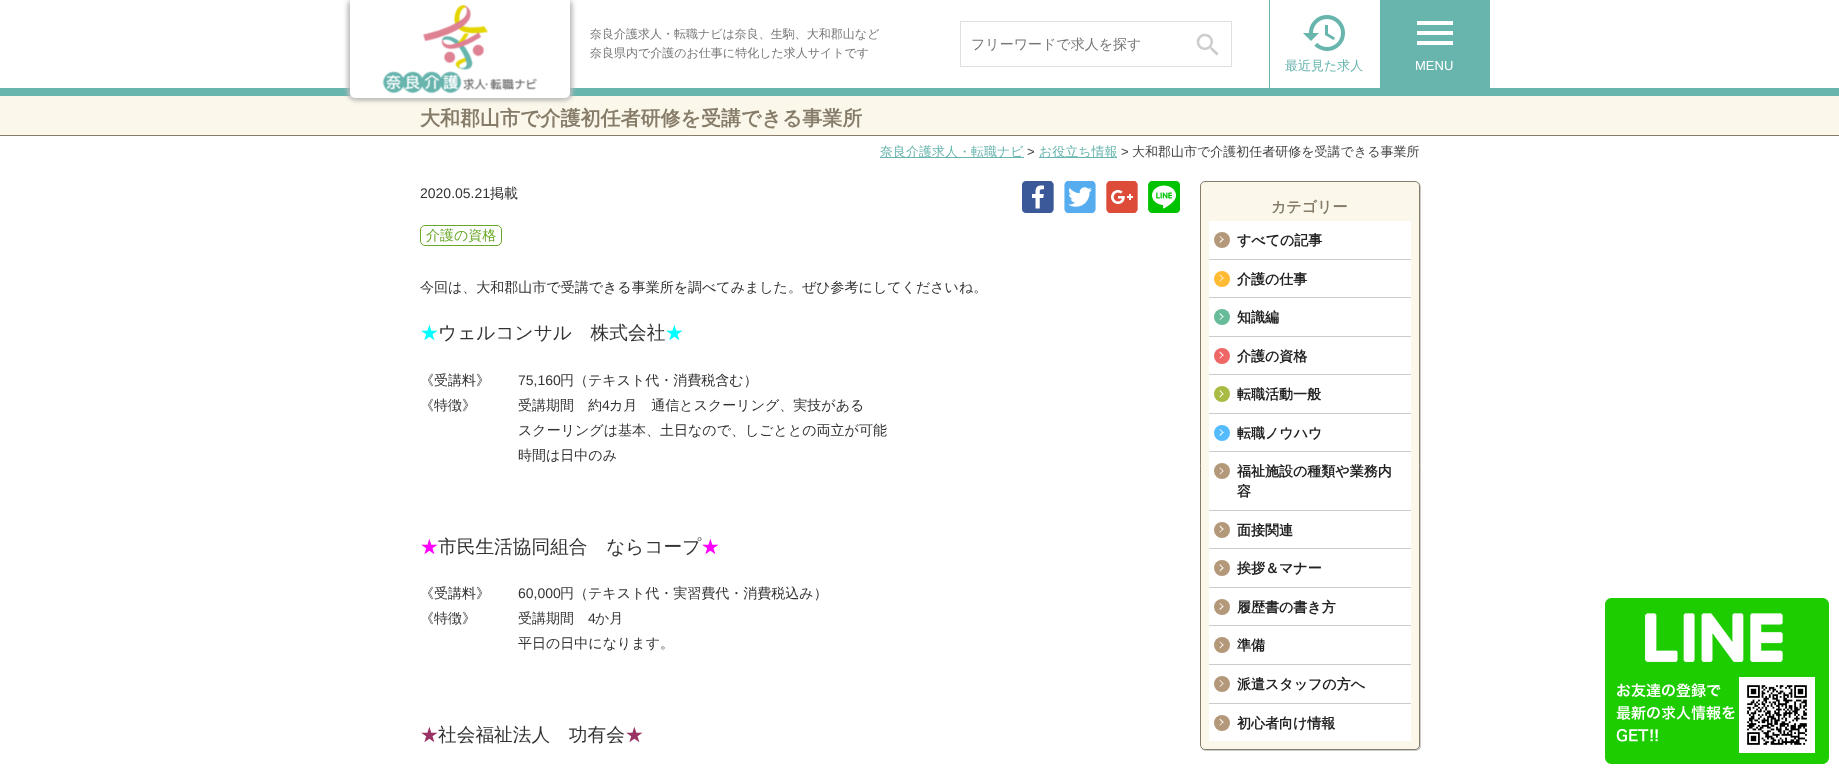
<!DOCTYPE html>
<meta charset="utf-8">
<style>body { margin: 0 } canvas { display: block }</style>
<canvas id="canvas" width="1839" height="774"></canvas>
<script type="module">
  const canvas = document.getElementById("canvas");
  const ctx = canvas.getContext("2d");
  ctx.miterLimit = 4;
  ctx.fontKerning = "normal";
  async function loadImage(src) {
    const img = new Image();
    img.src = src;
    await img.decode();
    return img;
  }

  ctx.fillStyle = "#ffffff";
  ctx.fillRect(0, 0, 1839, 774);
  ctx.fillStyle = "#68b5ae";
  ctx.fillRect(0, 88, 1839, 8);
  ctx.fillStyle = "#fbf8eb";
  ctx.fillRect(0, 96, 1839, 39);
  ctx.fillStyle = "rgba(187, 187, 187, 0.8)";
  ctx.filter = "blur(2px)";
  ctx.beginPath();
  ctx.roundRect(347, 0, 220, 98, 5);
  ctx.fill();
  ctx.filter = "none";
  ctx.filter = "blur(2px)";
  ctx.beginPath();
  ctx.roundRect(353, 0, 220, 98, 5);
  ctx.fill();
  ctx.filter = "none";
  ctx.filter = "blur(2px)";
  ctx.beginPath();
  ctx.roundRect(350, 3, 220, 98, 5);
  ctx.fill();
  ctx.filter = "none";
  ctx.fillStyle = "#ffffff";
  ctx.beginPath();
  ctx.roundRect(350, 0, 220, 98, [0, 0, 5, 5]);
  ctx.fill();
  ctx.drawImage(await loadImage("img1.png"), 382, 4, 156, 90);
  ctx.font = "500 12px WenQuanYi Zen Hei";
  ctx.fillStyle = "#777777";
  ctx.fillText("奈良介護求人・転職ナビは奈良、生駒、大和郡山など", 590, 38);
  ctx.fillText("奈良県内で介護のお仕事に特化した求人サイトです", 590, 57);
  ctx.strokeStyle = "#e0e0e0";
  ctx.strokeRect(960.5, 21.5, 271, 45);
  ctx.font = "500 14px WenQuanYi Zen Hei";
  ctx.fillText("フリーワードで求人を探す", 971, 49);
  ctx.drawImage(await loadImage("img2.png"), 1196, 33, 23, 23);
  ctx.fillStyle = "#68b5ae";
  ctx.fillRect(1269, 0, 1, 88);
  ctx.drawImage(await loadImage("img3.png"), 1303, 15, 42, 36);
  ctx.font = "500 13px WenQuanYi Zen Hei";
  ctx.fillText("最近見た求人", 1285, 70);
  ctx.fillRect(1380, 0, 110, 88);
  ctx.fillStyle = "#ffffff";
  ctx.beginPath();
  ctx.moveTo(1417, 21);
  ctx.lineTo(1453, 21);
  ctx.lineTo(1453, 25);
  ctx.lineTo(1417, 25);
  ctx.closePath();
  ctx.moveTo(1417, 35);
  ctx.lineTo(1417, 31);
  ctx.lineTo(1453, 31);
  ctx.lineTo(1453, 35);
  ctx.closePath();
  ctx.moveTo(1417, 45);
  ctx.lineTo(1417, 41);
  ctx.lineTo(1453, 41);
  ctx.lineTo(1453, 45);
  ctx.closePath();
  ctx.fill();
  ctx.font = "13px Liberation Sans";
  ctx.fillText("MENU", 1415, 70);
  ctx.fillStyle = "#867c69";
  ctx.fillRect(0, 135, 1839, 1);
  ctx.font = "bold 20px WenQuanYi Zen Hei";
  ctx.fillText("大和郡山市で介護初任者研修を受講できる事業所", 420, 125);
  ctx.fillStyle = "#68b5ae";
  ctx.fillRect(880, 157, 144, 1);
  ctx.font = "500 13px WenQuanYi Zen Hei";
  ctx.fillText("奈良介護求人・転職ナビ", 880, 156);
  ctx.font = "13px Liberation Sans";
  ctx.fillStyle = "#444444";
  ctx.fillText(">", 1027, 156);
  ctx.fillStyle = "#68b5ae";
  ctx.fillRect(1039, 157, 78, 1);
  ctx.font = "500 13px WenQuanYi Zen Hei";
  ctx.fillText("お役立ち情報", 1039, 156);
  ctx.font = "13px Liberation Sans";
  ctx.fillStyle = "#444444";
  ctx.fillText(">", 1121, 156);
  ctx.font = "500 13px WenQuanYi Zen Hei";
  ctx.fillText("大和郡山市で介護初任者研修を受講できる事業所", 1132, 156);
  ctx.font = "14px Liberation Sans";
  ctx.fillStyle = "#333333";
  ctx.fillText("2020.05.21", 420, 198);
  ctx.font = "500 14px WenQuanYi Zen Hei";
  ctx.fillText("掲載", 490, 198);
  ctx.drawImage(await loadImage("img4.png"), 1022, 181, 32, 32);
  ctx.drawImage(await loadImage("img5.png"), 1064, 181, 32, 32);
  ctx.drawImage(await loadImage("img6.png"), 1106, 181, 32, 32);
  ctx.drawImage(await loadImage("img7.png"), 1148, 181, 32, 32);
  ctx.beginPath();
  ctx.roundRect(420.5, 225.5, 81, 20, 4.5);
  ctx.strokeStyle = "#6aa827";
  ctx.stroke();
  ctx.fillStyle = "#6aa827";
  ctx.fillText("介護の資格", 426, 240);
  ctx.fillStyle = "#333333";
  ctx.fillText("今回は、大和郡山市で受講できる事業所を調べてみました。ぜひ参考にしてくださいね。", 420, 292);
  ctx.font = "500 18.7px WenQuanYi Zen Hei";
  ctx.fillStyle = "#00ffff";
  ctx.fillText("★", 420, 339);
  ctx.fillStyle = "#333333";
  ctx.fillText("ウェルコンサル　株式会社", 438, 339);
  ctx.fillStyle = "#00ffff";
  ctx.fillText("★", 665, 339);
  ctx.font = "500 14px WenQuanYi Zen Hei";
  ctx.fillStyle = "#333333";
  ctx.fillText("《受講料》", 420, 385);
  ctx.font = "14px Liberation Sans";
  ctx.fillText("75,160", 518, 385);
  ctx.font = "500 14px WenQuanYi Zen Hei";
  ctx.fillText("円（テキスト代・消費税含む）", 560, 385);
  ctx.fillText("《特徴》　　　受講期間　約", 420, 410);
  ctx.font = "14px Liberation Sans";
  ctx.fillText("4", 602, 410);
  ctx.font = "500 14px WenQuanYi Zen Hei";
  ctx.fillText("カ月　通信とスクーリング、実技がある", 609, 410);
  ctx.fillText("スクーリングは基本、土日なので、しごととの両立が可能", 518, 435);
  ctx.fillText("時間は日中のみ", 518, 460);
  ctx.font = "500 18.7px WenQuanYi Zen Hei";
  ctx.fillStyle = "#ff00ff";
  ctx.fillText("★", 420, 553);
  ctx.fillStyle = "#333333";
  ctx.fillText("市民生活協同組合　ならコープ", 438, 553);
  ctx.fillStyle = "#ff00ff";
  ctx.fillText("★", 701, 553);
  ctx.font = "500 14px WenQuanYi Zen Hei";
  ctx.fillStyle = "#333333";
  ctx.fillText("《受講料》", 420, 598);
  ctx.font = "14px Liberation Sans";
  ctx.fillText("60,000", 518, 598);
  ctx.font = "500 14px WenQuanYi Zen Hei";
  ctx.fillText("円（テキスト代・実習費代・消費税込み）", 560, 598);
  ctx.fillText("《特徴》　　　受講期間", 420, 623);
  ctx.font = "14px Liberation Sans";
  ctx.fillText("4", 588, 623);
  ctx.font = "500 14px WenQuanYi Zen Hei";
  ctx.fillText("か月", 595, 623);
  ctx.fillText("平日の日中になります。", 518, 648);
  ctx.font = "500 18.7px WenQuanYi Zen Hei";
  ctx.fillStyle = "#993366";
  ctx.fillText("★", 420, 741);
  ctx.fillStyle = "#333333";
  ctx.fillText("社会福祉法人　功有会", 438, 741);
  ctx.fillStyle = "#993366";
  ctx.fillText("★", 625, 741);
  ctx.fillStyle = "rgba(0, 0, 0, 0.2)";
  ctx.filter = "blur(0.5px)";
  ctx.beginPath();
  ctx.roundRect(1201, 182, 220, 569, 5);
  ctx.fill();
  ctx.filter = "none";
  ctx.fillStyle = "#fbf8eb";
  ctx.beginPath();
  ctx.roundRect(1200.5, 181.5, 219, 568, 4.5);
  ctx.fill();
  ctx.strokeStyle = "#867c69";
  ctx.stroke();
  ctx.font = "bold 15px WenQuanYi Zen Hei";
  ctx.fillStyle = "#867c69";
  ctx.fillText("カテゴリー", 1271, 212);
  ctx.fillStyle = "#ffffff";
  ctx.fillRect(1209, 221, 202, 520);
  ctx.fillStyle = "#b4987a";
  ctx.beginPath();
  ctx.arc(1222, 240, 8, 0, Math.PI * 2);
  ctx.fill();
  ctx.font = "bold 14px WenQuanYi Zen Hei";
  ctx.fillStyle = "#222222";
  ctx.fillText("すべての記事", 1237, 245);
  ctx.fillStyle = "#ffffff";
  ctx.beginPath();
  ctx.moveTo(1219.5, 236.5);
  ctx.lineTo(1220, 236);
  ctx.lineTo(1223.5, 239.5);
  ctx.lineTo(1223, 240);
  ctx.closePath();
  ctx.fill();
  ctx.beginPath();
  ctx.moveTo(1219.5, 242);
  ctx.lineTo(1223, 238.5);
  ctx.lineTo(1223.5, 239.5);
  ctx.lineTo(1220, 243);
  ctx.closePath();
  ctx.fill();
  ctx.fillStyle = "#cccccc";
  ctx.fillRect(1209, 259, 202, 1);
  ctx.fillStyle = "#ffbb33";
  ctx.beginPath();
  ctx.arc(1222, 279, 8, 0, Math.PI * 2);
  ctx.fill();
  ctx.fillStyle = "#222222";
  ctx.fillText("介護の仕事", 1237, 284);
  ctx.fillStyle = "#ffffff";
  ctx.beginPath();
  ctx.moveTo(1219.5, 275);
  ctx.lineTo(1220, 274.5);
  ctx.lineTo(1223.5, 278);
  ctx.lineTo(1223, 278.5);
  ctx.closePath();
  ctx.fill();
  ctx.beginPath();
  ctx.moveTo(1219.5, 281);
  ctx.lineTo(1223, 277.5);
  ctx.lineTo(1223.5, 278);
  ctx.lineTo(1220, 281.5);
  ctx.closePath();
  ctx.fill();
  ctx.fillStyle = "#cccccc";
  ctx.fillRect(1209, 297, 202, 1);
  ctx.fillStyle = "#66bb99";
  ctx.beginPath();
  ctx.arc(1222, 317, 8, 0, Math.PI * 2);
  ctx.fill();
  ctx.fillStyle = "#222222";
  ctx.fillText("知識編", 1237, 322);
  ctx.fillStyle = "#ffffff";
  ctx.beginPath();
  ctx.moveTo(1219.5, 314);
  ctx.lineTo(1220, 313);
  ctx.lineTo(1223.5, 316.5);
  ctx.lineTo(1223, 317.5);
  ctx.closePath();
  ctx.fill();
  ctx.beginPath();
  ctx.moveTo(1219.5, 319.5);
  ctx.lineTo(1223, 316);
  ctx.lineTo(1223.5, 316.5);
  ctx.lineTo(1220, 320);
  ctx.closePath();
  ctx.fill();
  ctx.fillStyle = "#cccccc";
  ctx.fillRect(1209, 336, 202, 1);
  ctx.fillStyle = "#ee6666";
  ctx.beginPath();
  ctx.arc(1222, 356, 8, 0, Math.PI * 2);
  ctx.fill();
  ctx.fillStyle = "#222222";
  ctx.fillText("介護の資格", 1237, 361);
  ctx.fillStyle = "#ffffff";
  ctx.beginPath();
  ctx.moveTo(1219.5, 352.5);
  ctx.lineTo(1220, 351.5);
  ctx.lineTo(1223.5, 355);
  ctx.lineTo(1223, 356);
  ctx.closePath();
  ctx.fill();
  ctx.beginPath();
  ctx.moveTo(1219.5, 358);
  ctx.lineTo(1223, 354.5);
  ctx.lineTo(1223.5, 355);
  ctx.lineTo(1220, 358.5);
  ctx.closePath();
  ctx.fill();
  ctx.fillStyle = "#cccccc";
  ctx.fillRect(1209, 374, 202, 1);
  ctx.fillStyle = "#aabb44";
  ctx.beginPath();
  ctx.arc(1222, 394, 8, 0, Math.PI * 2);
  ctx.fill();
  ctx.fillStyle = "#222222";
  ctx.fillText("転職活動一般", 1237, 399);
  ctx.fillStyle = "#ffffff";
  ctx.beginPath();
  ctx.moveTo(1219.5, 391);
  ctx.lineTo(1220, 390);
  ctx.lineTo(1223.5, 394);
  ctx.lineTo(1223, 394.5);
  ctx.closePath();
  ctx.fill();
  ctx.beginPath();
  ctx.moveTo(1219.5, 396.5);
  ctx.lineTo(1223, 393);
  ctx.lineTo(1223.5, 394);
  ctx.lineTo(1220, 397.5);
  ctx.closePath();
  ctx.fill();
  ctx.fillStyle = "#cccccc";
  ctx.fillRect(1209, 413, 202, 1);
  ctx.fillStyle = "#55bbff";
  ctx.beginPath();
  ctx.arc(1222, 433, 8, 0, Math.PI * 2);
  ctx.fill();
  ctx.fillStyle = "#222222";
  ctx.fillText("転職ノウハウ", 1237, 438);
  ctx.fillStyle = "#ffffff";
  ctx.beginPath();
  ctx.moveTo(1219.5, 429.5);
  ctx.lineTo(1220, 429);
  ctx.lineTo(1223.5, 432.5);
  ctx.lineTo(1223, 433);
  ctx.closePath();
  ctx.fill();
  ctx.beginPath();
  ctx.moveTo(1219.5, 435);
  ctx.lineTo(1223, 431.5);
  ctx.lineTo(1223.5, 432.5);
  ctx.lineTo(1220, 436);
  ctx.closePath();
  ctx.fill();
  ctx.fillStyle = "#cccccc";
  ctx.fillRect(1209, 451, 202, 1);
  ctx.fillStyle = "#b4987a";
  ctx.beginPath();
  ctx.arc(1222, 471, 8, 0, Math.PI * 2);
  ctx.fill();
  ctx.fillStyle = "#222222";
  ctx.fillText("福祉施設の種類や業務内", 1237, 476);
  ctx.fillStyle = "#ffffff";
  ctx.beginPath();
  ctx.moveTo(1219.5, 468);
  ctx.lineTo(1220, 467.5);
  ctx.lineTo(1223.5, 471);
  ctx.lineTo(1223, 471.5);
  ctx.closePath();
  ctx.fill();
  ctx.beginPath();
  ctx.moveTo(1219.5, 474);
  ctx.lineTo(1223, 470.5);
  ctx.lineTo(1223.5, 471);
  ctx.lineTo(1220, 474.5);
  ctx.closePath();
  ctx.fill();
  ctx.fillStyle = "#222222";
  ctx.fillText("容", 1237, 496);
  ctx.fillStyle = "#cccccc";
  ctx.fillRect(1209, 510, 202, 1);
  ctx.fillStyle = "#b4987a";
  ctx.beginPath();
  ctx.arc(1222, 530, 8, 0, Math.PI * 2);
  ctx.fill();
  ctx.fillStyle = "#222222";
  ctx.fillText("面接関連", 1237, 535);
  ctx.fillStyle = "#ffffff";
  ctx.beginPath();
  ctx.moveTo(1219.5, 526.5);
  ctx.lineTo(1220, 525.5);
  ctx.lineTo(1223.5, 529);
  ctx.lineTo(1223, 530);
  ctx.closePath();
  ctx.fill();
  ctx.beginPath();
  ctx.moveTo(1219.5, 532);
  ctx.lineTo(1223, 528.5);
  ctx.lineTo(1223.5, 529);
  ctx.lineTo(1220, 532.5);
  ctx.closePath();
  ctx.fill();
  ctx.fillStyle = "#cccccc";
  ctx.fillRect(1209, 548, 202, 1);
  ctx.fillStyle = "#b4987a";
  ctx.beginPath();
  ctx.arc(1222, 568, 8, 0, Math.PI * 2);
  ctx.fill();
  ctx.fillStyle = "#222222";
  ctx.fillText("挨拶＆マナー", 1237, 573);
  ctx.fillStyle = "#ffffff";
  ctx.beginPath();
  ctx.moveTo(1219.5, 565);
  ctx.lineTo(1220, 564);
  ctx.lineTo(1223.5, 568);
  ctx.lineTo(1223, 568.5);
  ctx.closePath();
  ctx.fill();
  ctx.beginPath();
  ctx.moveTo(1219.5, 570.5);
  ctx.lineTo(1223, 567);
  ctx.lineTo(1223.5, 568);
  ctx.lineTo(1220, 571.5);
  ctx.closePath();
  ctx.fill();
  ctx.fillStyle = "#cccccc";
  ctx.fillRect(1209, 587, 202, 1);
  ctx.fillStyle = "#b4987a";
  ctx.beginPath();
  ctx.arc(1222, 607, 8, 0, Math.PI * 2);
  ctx.fill();
  ctx.fillStyle = "#222222";
  ctx.fillText("履歴書の書き方", 1237, 612);
  ctx.fillStyle = "#ffffff";
  ctx.beginPath();
  ctx.moveTo(1219.5, 603.5);
  ctx.lineTo(1220, 603);
  ctx.lineTo(1223.5, 606.5);
  ctx.lineTo(1223, 607);
  ctx.closePath();
  ctx.fill();
  ctx.beginPath();
  ctx.moveTo(1219.5, 609);
  ctx.lineTo(1223, 605.5);
  ctx.lineTo(1223.5, 606.5);
  ctx.lineTo(1220, 610);
  ctx.closePath();
  ctx.fill();
  ctx.fillStyle = "#cccccc";
  ctx.fillRect(1209, 625, 202, 1);
  ctx.fillStyle = "#b4987a";
  ctx.beginPath();
  ctx.arc(1222, 645, 8, 0, Math.PI * 2);
  ctx.fill();
  ctx.fillStyle = "#222222";
  ctx.fillText("準備", 1237, 650);
  ctx.fillStyle = "#ffffff";
  ctx.beginPath();
  ctx.moveTo(1219.5, 642);
  ctx.lineTo(1220, 641.5);
  ctx.lineTo(1223.5, 645);
  ctx.lineTo(1223, 645.5);
  ctx.closePath();
  ctx.fill();
  ctx.beginPath();
  ctx.moveTo(1219.5, 648);
  ctx.lineTo(1223, 644);
  ctx.lineTo(1223.5, 645);
  ctx.lineTo(1220, 648.5);
  ctx.closePath();
  ctx.fill();
  ctx.fillStyle = "#cccccc";
  ctx.fillRect(1209, 664, 202, 1);
  ctx.fillStyle = "#b4987a";
  ctx.beginPath();
  ctx.arc(1222, 684, 8, 0, Math.PI * 2);
  ctx.fill();
  ctx.fillStyle = "#222222";
  ctx.fillText("派遣スタッフの方へ", 1237, 689);
  ctx.fillStyle = "#ffffff";
  ctx.beginPath();
  ctx.moveTo(1219.5, 680.5);
  ctx.lineTo(1220, 680);
  ctx.lineTo(1223.5, 683.5);
  ctx.lineTo(1223, 684);
  ctx.closePath();
  ctx.fill();
  ctx.beginPath();
  ctx.moveTo(1219.5, 686.5);
  ctx.lineTo(1223, 683);
  ctx.lineTo(1223.5, 683.5);
  ctx.lineTo(1220, 687);
  ctx.closePath();
  ctx.fill();
  ctx.fillStyle = "#cccccc";
  ctx.fillRect(1209, 703, 202, 1);
  ctx.fillStyle = "#b4987a";
  ctx.beginPath();
  ctx.arc(1222, 723, 8, 0, Math.PI * 2);
  ctx.fill();
  ctx.fillStyle = "#222222";
  ctx.fillText("初心者向け情報", 1237, 728);
  ctx.fillStyle = "#ffffff";
  ctx.beginPath();
  ctx.moveTo(1219.5, 719.5);
  ctx.lineTo(1220, 718.5);
  ctx.lineTo(1223.5, 722);
  ctx.lineTo(1223, 723);
  ctx.closePath();
  ctx.fill();
  ctx.beginPath();
  ctx.moveTo(1219.5, 725);
  ctx.lineTo(1223, 721.5);
  ctx.lineTo(1223.5, 722);
  ctx.lineTo(1220, 725.5);
  ctx.closePath();
  ctx.fill();
  ctx.drawImage(await loadImage("img8.png"), 1605, 598, 224, 166);
</script>
